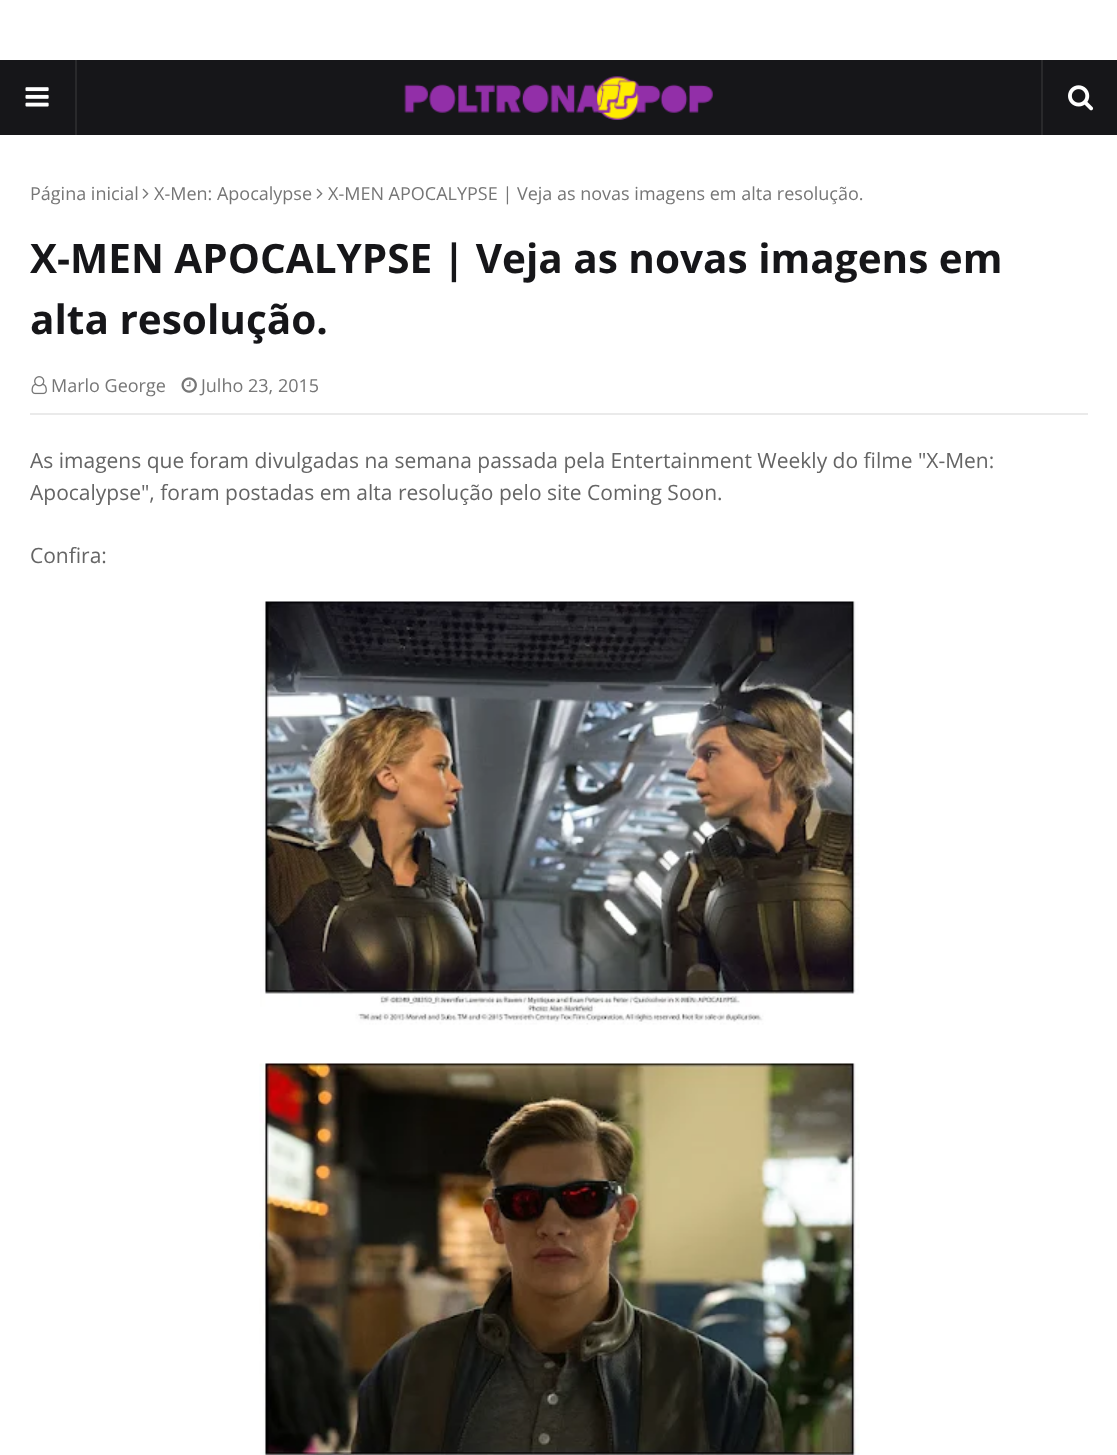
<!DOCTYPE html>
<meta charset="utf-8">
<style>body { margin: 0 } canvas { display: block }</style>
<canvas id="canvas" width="1117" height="1455"></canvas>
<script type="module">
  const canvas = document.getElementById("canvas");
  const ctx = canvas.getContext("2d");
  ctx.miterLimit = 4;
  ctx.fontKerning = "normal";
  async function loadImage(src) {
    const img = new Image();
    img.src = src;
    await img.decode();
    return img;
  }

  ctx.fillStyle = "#ffffff";
  ctx.fillRect(0, 0, 1117, 1455);
  ctx.fillStyle = "#161619";
  ctx.fillRect(0, 60, 1117, 75);
  ctx.fillStyle = "#29292b";
  ctx.fillRect(75, 60, 2, 75);
  ctx.drawImage(await loadImage("img1.png"), 25, 87, 24, 20);
  ctx.drawImage(await loadImage("img2.png"), 404, 76, 309, 44);
  ctx.fillRect(1041, 60, 2, 75);
  ctx.drawImage(await loadImage("img3.png"), 1068, 85, 26, 26);
  ctx.font = "18px Open Sans";
  ctx.fillStyle = "#767676";
  ctx.fillText("Página inicial", 30, 200);
  ctx.drawImage(await loadImage("img4.png"), 142, 188, 7, 11);
  ctx.fillText("X-Men: Apocalypse", 154, 200);
  ctx.drawImage(await loadImage("img4.png"), 316, 188, 7, 11);
  ctx.fillText("X-MEN APOCALYPSE | Veja as novas imagens em alta resolução.", 328, 200);
  ctx.font = "bold 40.5px Open Sans";
  ctx.fillStyle = "#161619";
  ctx.fillText("X-MEN APOCALYPSE | Veja as novas imagens em", 30, 273);
  ctx.fillText("alta resolução.", 30, 334);
  ctx.fillStyle = "#eaeaea";
  ctx.fillRect(30, 413, 1058, 2);
  ctx.drawImage(await loadImage("img5.png"), 31, 376, 16, 19);
  ctx.font = "18px Open Sans";
  ctx.fillStyle = "#767676";
  ctx.fillText("Marlo George", 51, 392);
  ctx.drawImage(await loadImage("img6.png"), 181, 377, 16, 16);
  ctx.fillText("Julho 23, 2015", 201, 392);
  ctx.font = "21px Open Sans";
  ctx.fillStyle = "#656565";
  ctx.fillText("As imagens que foram divulgadas na semana passada pela Entertainment Weekly do filme \"X-Men:", 30, 468);
  ctx.fillText("Apocalypse\", foram postadas em alta resolução pelo site Coming Soon.", 30, 500);
  ctx.fillText("Confira:", 30, 563);
  ctx.drawImage(await loadImage("img7.png"), 260, 601, 600, 424);
  ctx.drawImage(await loadImage("img8.png"), 259, 1063, 601, 392);
</script>
